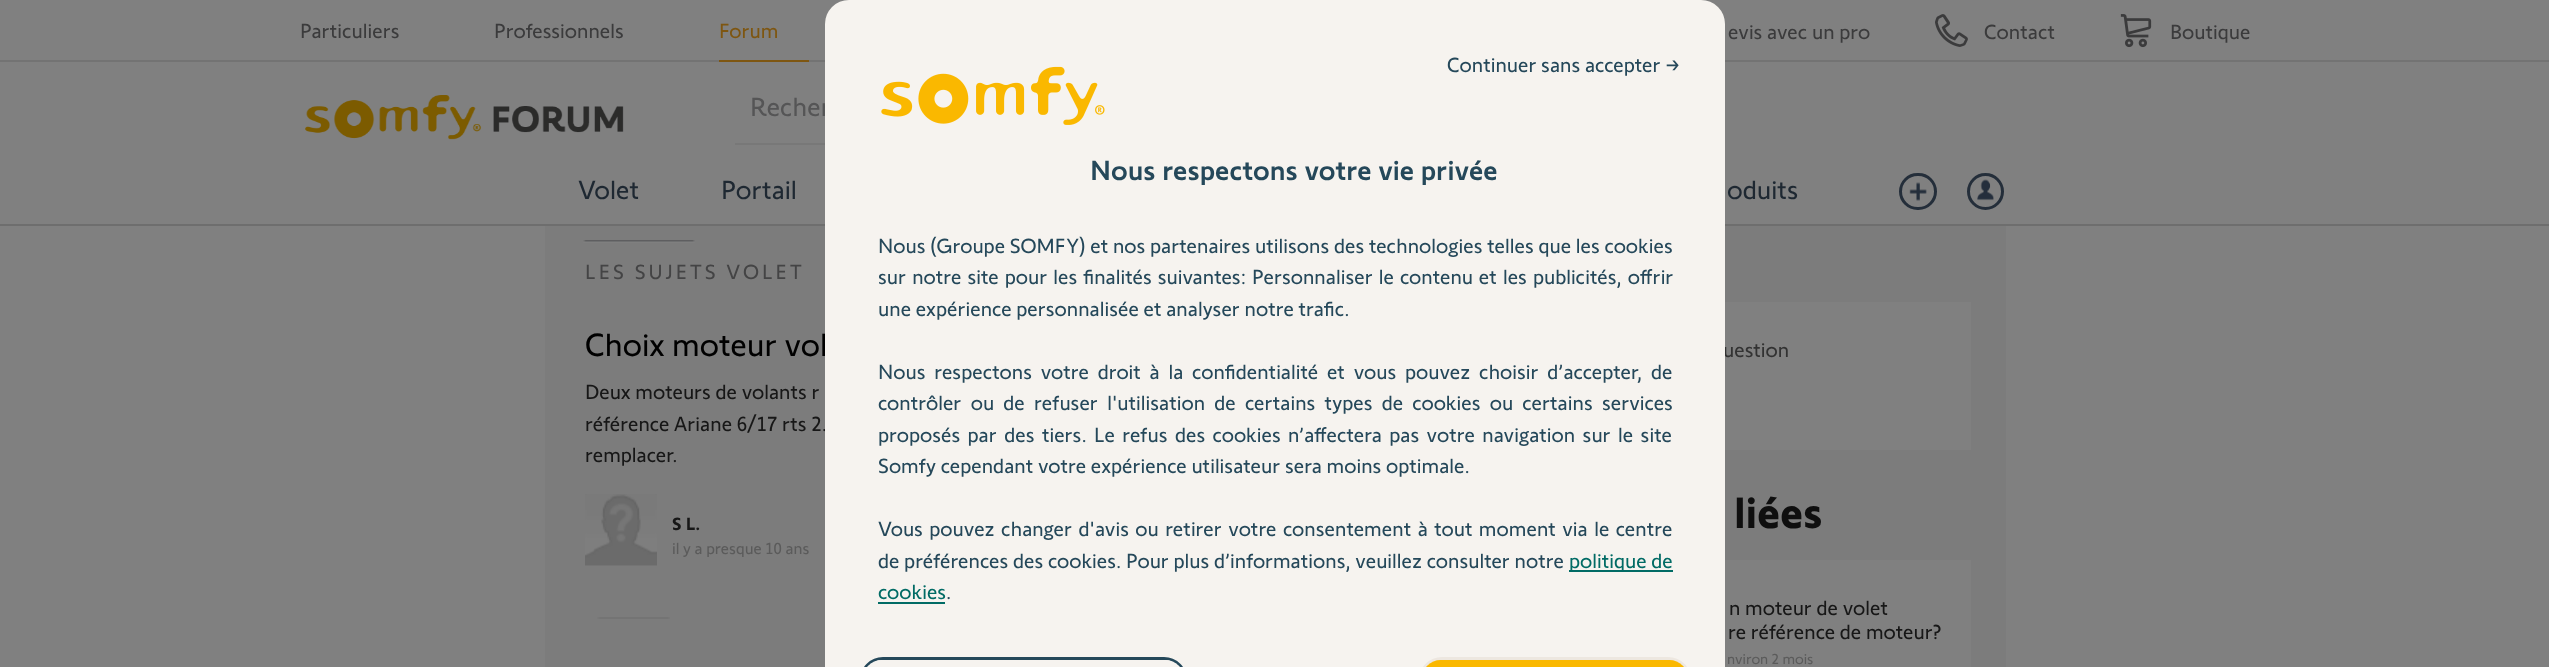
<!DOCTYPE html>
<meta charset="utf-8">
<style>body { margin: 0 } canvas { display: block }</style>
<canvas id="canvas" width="2549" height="667"></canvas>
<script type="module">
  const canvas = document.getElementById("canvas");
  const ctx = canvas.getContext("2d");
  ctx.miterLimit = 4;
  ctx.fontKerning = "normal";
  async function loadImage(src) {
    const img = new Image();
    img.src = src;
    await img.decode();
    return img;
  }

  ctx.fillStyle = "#808080";
  ctx.fillRect(0, 0, 2549, 667);
  ctx.fillStyle = "#737373";
  ctx.fillRect(0, 60, 2549, 2);
  ctx.font = "21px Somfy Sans";
  ctx.fillStyle = "#3b3b3c";
  ctx.fillText("Particuliers", 300, 38);
  ctx.fillText("Professionnels", 494, 38);
  ctx.fillStyle = "#7e5611";
  ctx.fillRect(719, 60, 90, 2);
  ctx.fillText("Forum", 719, 38);
  ctx.drawImage(await loadImage("img1.png"), 305, 95, 319, 45);
  ctx.fillStyle = "#3b3b3c";
  ctx.fillText("evis avec un pro", 1728, 39);
  ctx.drawImage(await loadImage("img2.png"), 1935, 14, 33, 33);
  ctx.fillText("Contact", 1984, 39);
  ctx.drawImage(await loadImage("img3.png"), 2120, 14, 32, 34);
  ctx.fillText("Boutique", 2170, 39);
  ctx.font = "27px Somfy Sans";
  ctx.fillStyle = "#1e2832";
  ctx.fillText("Volet", 578, 199);
  ctx.fillText("Portail", 721, 199);
  ctx.fillText("oduits", 1727, 199);
  ctx.fillStyle = "#787878";
  ctx.fillRect(735, 143, 90, 2);
  ctx.fillStyle = "#555556";
  ctx.fillText("Recher", 750, 116);
  ctx.fillStyle = "#6e6e6e";
  ctx.fillRect(0, 224, 2549, 2);
  ctx.drawImage(await loadImage("img4.png"), 1909, 182, 18, 19);
  ctx.beginPath();
  ctx.roundRect(1900.5, 174.5, 35, 34, 17);
  ctx.strokeStyle = "#242e3a";
  ctx.lineWidth = 3;
  ctx.stroke();
  ctx.drawImage(await loadImage("img5.png"), 1977, 179, 17, 22);
  ctx.beginPath();
  ctx.arc(1985.5, 191.5, 17, 0, Math.PI * 2);
  ctx.stroke();
  ctx.fillStyle = "#7c7c7c";
  ctx.fillRect(545, 226, 1461, 441);
  ctx.font = "33px Somfy Sans";
  ctx.fillStyle = "#000000";
  ctx.fillText("Choix moteur vol", 585, 356);
  ctx.font = "21px Somfy Sans";
  ctx.fillStyle = "#171717";
  ctx.fillText("référence Ariane 6/17 rts 2.", 585, 431);
  ctx.fillStyle = "#808080";
  ctx.fillRect(1725, 302, 246, 148);
  ctx.fillStyle = "#323232";
  ctx.fillText("uestion", 1723, 357);
  ctx.fillStyle = "#f6f3ef";
  ctx.beginPath();
  ctx.roundRect(825, 0, 900, 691, 24);
  ctx.fill();
  ctx.fillStyle = "#25485a";
  ctx.fillText("Continuer sans accepter →", 1447, 72);
  ctx.beginPath();
  ctx.roundRect(861.5, 658.5, 324, 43, 31.5);
  ctx.strokeStyle = "#25485a";
  ctx.stroke();
  ctx.fillStyle = "#f6f3ef";
  ctx.beginPath();
  ctx.roundRect(863, 660, 321, 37, 30);
  ctx.fill();
  ctx.beginPath();
  ctx.roundRect(1420.5, 658.5, 269, 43, 31.5);
  ctx.strokeStyle = "#ede7e0";
  ctx.stroke();
  ctx.fillStyle = "#fab800";
  ctx.beginPath();
  ctx.roundRect(1422, 660, 266, 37, 30);
  ctx.fill();
  ctx.drawImage(await loadImage("img6.png"), 881, 66, 224, 59);
  ctx.font = "500 28.5px Somfy Sans";
  ctx.fillStyle = "#25485a";
  ctx.fillText("Nous respectons votre vie privée", 1090, 180);
  ctx.wordSpacing = "0.1px";
  ctx.font = "21px Somfy Sans";
  ctx.fillText("Nous (Groupe SOMFY) et nos partenaires utilisons des technologies telles que les cookies", 878, 253);
  ctx.wordSpacing = "1.4px";
  ctx.fillText("sur notre site pour les finalités suivantes: Personnaliser le contenu et les publicités, offrir", 878, 284);
  ctx.wordSpacing = "0px";
  ctx.fillText("une expérience personnalisée et analyser notre trafic.", 878, 316);
  ctx.wordSpacing = "4.1px";
  ctx.fillText("Nous respectons votre droit à la confidentialité et vous pouvez choisir d’accepter, de", 878, 379);
  ctx.wordSpacing = "4.6px";
  ctx.fillText("contrôler ou de refuser l'utilisation de certains types de cookies ou certains services", 878, 410);
  ctx.wordSpacing = "2.75px";
  ctx.fillText("proposés par des tiers. Le refus des cookies n’affectera pas votre navigation sur le site", 878, 442);
  ctx.wordSpacing = "0px";
  ctx.fillText("Somfy cependant votre expérience utilisateur sera moins optimale.", 878, 473);
  ctx.wordSpacing = "1.8px";
  ctx.fillText("Vous pouvez changer d'avis ou retirer votre consentement à tout moment via le centre", 878, 536);
  ctx.wordSpacing = "0px";
  ctx.fillText("de préférences des cookies. Pour plus d’informations, veuillez consulter notre", 878, 568);
  ctx.fillStyle = "#016b65";
  ctx.fillRect(1569, 570, 104, 2);
  ctx.fillText("politique de", 1569, 568);
  ctx.fillText("cookies", 878, 599);
  ctx.fillRect(878, 602, 67, 2);
  ctx.fillStyle = "#25485a";
  ctx.fillText(".", 946, 599);
  ctx.drawImage(await loadImage("img7.png"), 583, 240, 112, 3);
  ctx.letterSpacing = "3px";
  ctx.fillStyle = "#444445";
  ctx.fillText("LES SUJETS VOLET", 585, 279);
  ctx.letterSpacing = "0px";
  ctx.fillStyle = "#171717";
  ctx.fillText("Deux moteurs de volants r", 585, 399);
  ctx.fillText("remplacer.", 585, 462);
  ctx.drawImage(await loadImage("img8.png"), 585, 494, 72, 72);
  ctx.font = "bold 18px Somfy Sans";
  ctx.fillText("S L.", 672, 530);
  ctx.font = "16.5px Somfy Sans";
  ctx.fillStyle = "#5b5b5b";
  ctx.fillText("il y a presque 10 ans", 672, 554);
  ctx.drawImage(await loadImage("img9.png"), 597, 617, 73, 2);
  ctx.font = "bold 45px Somfy Sans";
  ctx.fillStyle = "#0f0f0f";
  ctx.fillText("liées", 1734, 528);
  ctx.fillStyle = "#808080";
  ctx.fillRect(1725, 560, 246, 107);
  ctx.font = "21px Somfy Sans";
  ctx.fillStyle = "#171717";
  ctx.fillText("n moteur de volet", 1729, 615);
  ctx.fillText("re référence de moteur?", 1728, 639);
  ctx.font = "15px Somfy Sans";
  ctx.fillStyle = "#5b5b5b";
  ctx.fillText("nviron 2 mois", 1727, 664);
</script>
